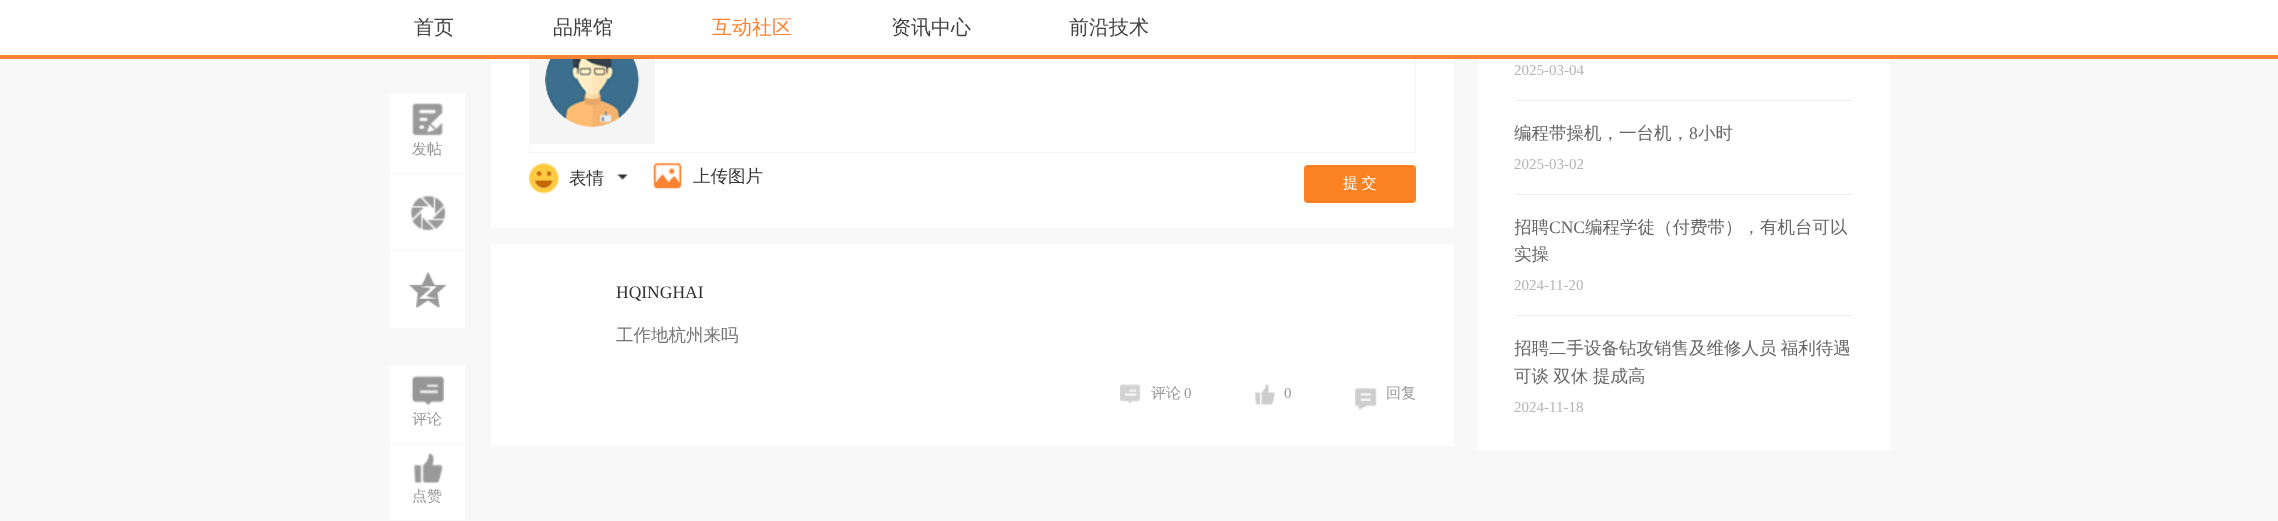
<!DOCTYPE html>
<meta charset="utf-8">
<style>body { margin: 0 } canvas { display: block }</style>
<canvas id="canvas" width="2278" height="521"></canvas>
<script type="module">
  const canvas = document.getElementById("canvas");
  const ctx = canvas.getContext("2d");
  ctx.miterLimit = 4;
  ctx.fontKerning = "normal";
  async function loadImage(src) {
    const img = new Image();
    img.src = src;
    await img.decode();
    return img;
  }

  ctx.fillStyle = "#f8f8f8";
  ctx.fillRect(0, 0, 2278, 521);
  ctx.fillStyle = "#ffffff";
  ctx.fillRect(491, 59, 963, 169);
  ctx.strokeStyle = "#f5f5f5";
  ctx.strokeRect(529.5, 18.5, 886, 134);
  ctx.fillRect(0, 0, 2278, 55);
  ctx.fillStyle = "#fa8232";
  ctx.fillRect(0, 55, 2278, 4);
  ctx.font = "500 20px WenQuanYi Zen Hei";
  ctx.fillStyle = "#404040";
  ctx.fillText("首页", 414, 34);
  ctx.fillText("品牌馆", 553, 34);
  ctx.fillStyle = "#fa8232";
  ctx.fillText("互动社区", 712, 34);
  ctx.fillStyle = "#404040";
  ctx.fillText("资讯中心", 891, 34);
  ctx.fillText("前沿技术", 1069, 34);
  ctx.fillStyle = "#ffffff";
  ctx.fillRect(390, 94, 75, 79);
  ctx.drawImage(await loadImage("img1.png"), 411, 103, 32, 33);
  ctx.font = "500 15px WenQuanYi Zen Hei";
  ctx.fillStyle = "#999999";
  ctx.fillText("发帖", 412, 154);
  ctx.fillStyle = "#ffffff";
  ctx.fillRect(390, 174, 75, 76);
  ctx.drawImage(await loadImage("img2.png"), 410, 195, 36, 36);
  ctx.fillRect(390, 251, 75, 77);
  ctx.drawImage(await loadImage("img3.png"), 408, 272, 39, 36);
  ctx.fillRect(390, 366, 75, 77);
  ctx.drawImage(await loadImage("img4.png"), 411, 375, 34, 31);
  ctx.fillStyle = "#999999";
  ctx.fillText("评论", 412, 424);
  ctx.fillStyle = "#ffffff";
  ctx.fillRect(390, 444, 75, 76);
  ctx.drawImage(await loadImage("img5.png"), 413, 453, 30, 31);
  ctx.fillStyle = "#999999";
  ctx.fillText("点赞", 412, 501);
  ctx.fillStyle = "#f5f5f5";
  ctx.fillRect(530, 59, 125, 85);
  ctx.drawImage(await loadImage("img6.png"), 545, 59, 94, 68);
  ctx.drawImage(await loadImage("img7.png"), 528, 163, 31, 31);
  ctx.font = "500 17.5px WenQuanYi Zen Hei";
  ctx.fillStyle = "#333333";
  ctx.fillText("表情", 569, 184);
  ctx.drawImage(await loadImage("img8.png"), 617, 174, 11, 6);
  ctx.drawImage(await loadImage("img9.png"), 653, 163, 29, 26);
  ctx.fillText("上传图片", 693, 182);
  ctx.fillStyle = "#fc8221";
  ctx.beginPath();
  ctx.roundRect(1304, 165, 112, 38, 4);
  ctx.fill();
  ctx.wordSpacing = "-1px";
  ctx.font = "500 15px WenQuanYi Zen Hei";
  ctx.fillStyle = "#ffffff";
  ctx.fillText("提 交", 1343, 188);
  ctx.fillRect(491, 244, 963, 202);
  ctx.wordSpacing = "0px";
  ctx.font = "17.5px Liberation Serif";
  ctx.fillStyle = "#333333";
  ctx.fillText("HQINGHAI", 616, 298);
  ctx.font = "500 17.5px WenQuanYi Zen Hei";
  ctx.fillStyle = "#737373";
  ctx.fillText("工作地杭州来吗", 616, 341);
  ctx.drawImage(await loadImage("img10.png"), 1120, 384, 21, 20);
  ctx.font = "500 15px WenQuanYi Zen Hei";
  ctx.fillStyle = "#999999";
  ctx.fillText("评论", 1151, 398);
  ctx.font = "15px Liberation Serif";
  ctx.fillText("0", 1184, 398);
  ctx.drawImage(await loadImage("img11.png"), 1255, 384, 20, 21);
  ctx.fillText("0", 1284, 398);
  ctx.drawImage(await loadImage("img12.png"), 1355, 388, 22, 22);
  ctx.font = "500 15px WenQuanYi Zen Hei";
  ctx.fillText("回复", 1386, 398);
  ctx.fillStyle = "#ffffff";
  ctx.fillRect(1478, 59, 412, 391);
  ctx.font = "15px Liberation Serif";
  ctx.fillStyle = "#b5b5b5";
  ctx.fillText("2025-03-04", 1514, 75);
  ctx.fillStyle = "#ededed";
  ctx.fillRect(1515, 100, 338, 1);
  ctx.font = "500 17.5px WenQuanYi Zen Hei";
  ctx.fillStyle = "#666666";
  ctx.fillText("编程带操机，一台机，", 1514, 139);
  ctx.font = "17.5px Liberation Serif";
  ctx.fillText("8", 1689, 139);
  ctx.font = "500 17.5px WenQuanYi Zen Hei";
  ctx.fillText("小时", 1698, 139);
  ctx.font = "15px Liberation Serif";
  ctx.fillStyle = "#b5b5b5";
  ctx.fillText("2025-03-02", 1514, 169);
  ctx.fillStyle = "#ededed";
  ctx.fillRect(1515, 194, 338, 1);
  ctx.save();
  ctx.beginPath();
  ctx.rect(1515, 214, 338, 55);
  ctx.clip();
  ctx.font = "500 17.5px WenQuanYi Zen Hei";
  ctx.fillStyle = "#666666";
  ctx.fillText("招聘", 1514, 233);
  ctx.restore();
  ctx.font = "17.5px Liberation Serif";
  ctx.fillStyle = "#666666";
  ctx.fillText("CNC", 1549, 233);
  ctx.font = "500 17.5px WenQuanYi Zen Hei";
  ctx.fillText("编程学徒（付费带），有机台可以", 1585, 233);
  ctx.fillText("实操", 1514, 260);
  ctx.font = "15px Liberation Serif";
  ctx.fillStyle = "#b5b5b5";
  ctx.fillText("2024-11-20", 1514, 290);
  ctx.fillStyle = "#ededed";
  ctx.fillRect(1515, 315, 338, 1);
  ctx.save();
  ctx.beginPath();
  ctx.rect(1515, 335, 338, 55);
  ctx.clip();
  ctx.wordSpacing = "-1px";
  ctx.font = "500 17.5px WenQuanYi Zen Hei";
  ctx.fillStyle = "#666666";
  ctx.fillText("招聘二手设备钻攻销售及维修人员 福利待遇", 1514, 354);
  ctx.restore();
  ctx.wordSpacing = "-1px";
  ctx.font = "500 17.5px WenQuanYi Zen Hei";
  ctx.fillStyle = "#666666";
  ctx.fillText("可谈 双休", 1514, 382);
  ctx.wordSpacing = "0px";
  ctx.fillText("提成高", 1593, 382);
  ctx.font = "15px Liberation Serif";
  ctx.fillStyle = "#b5b5b5";
  ctx.fillText("2024-11-18", 1514, 412);
</script>
